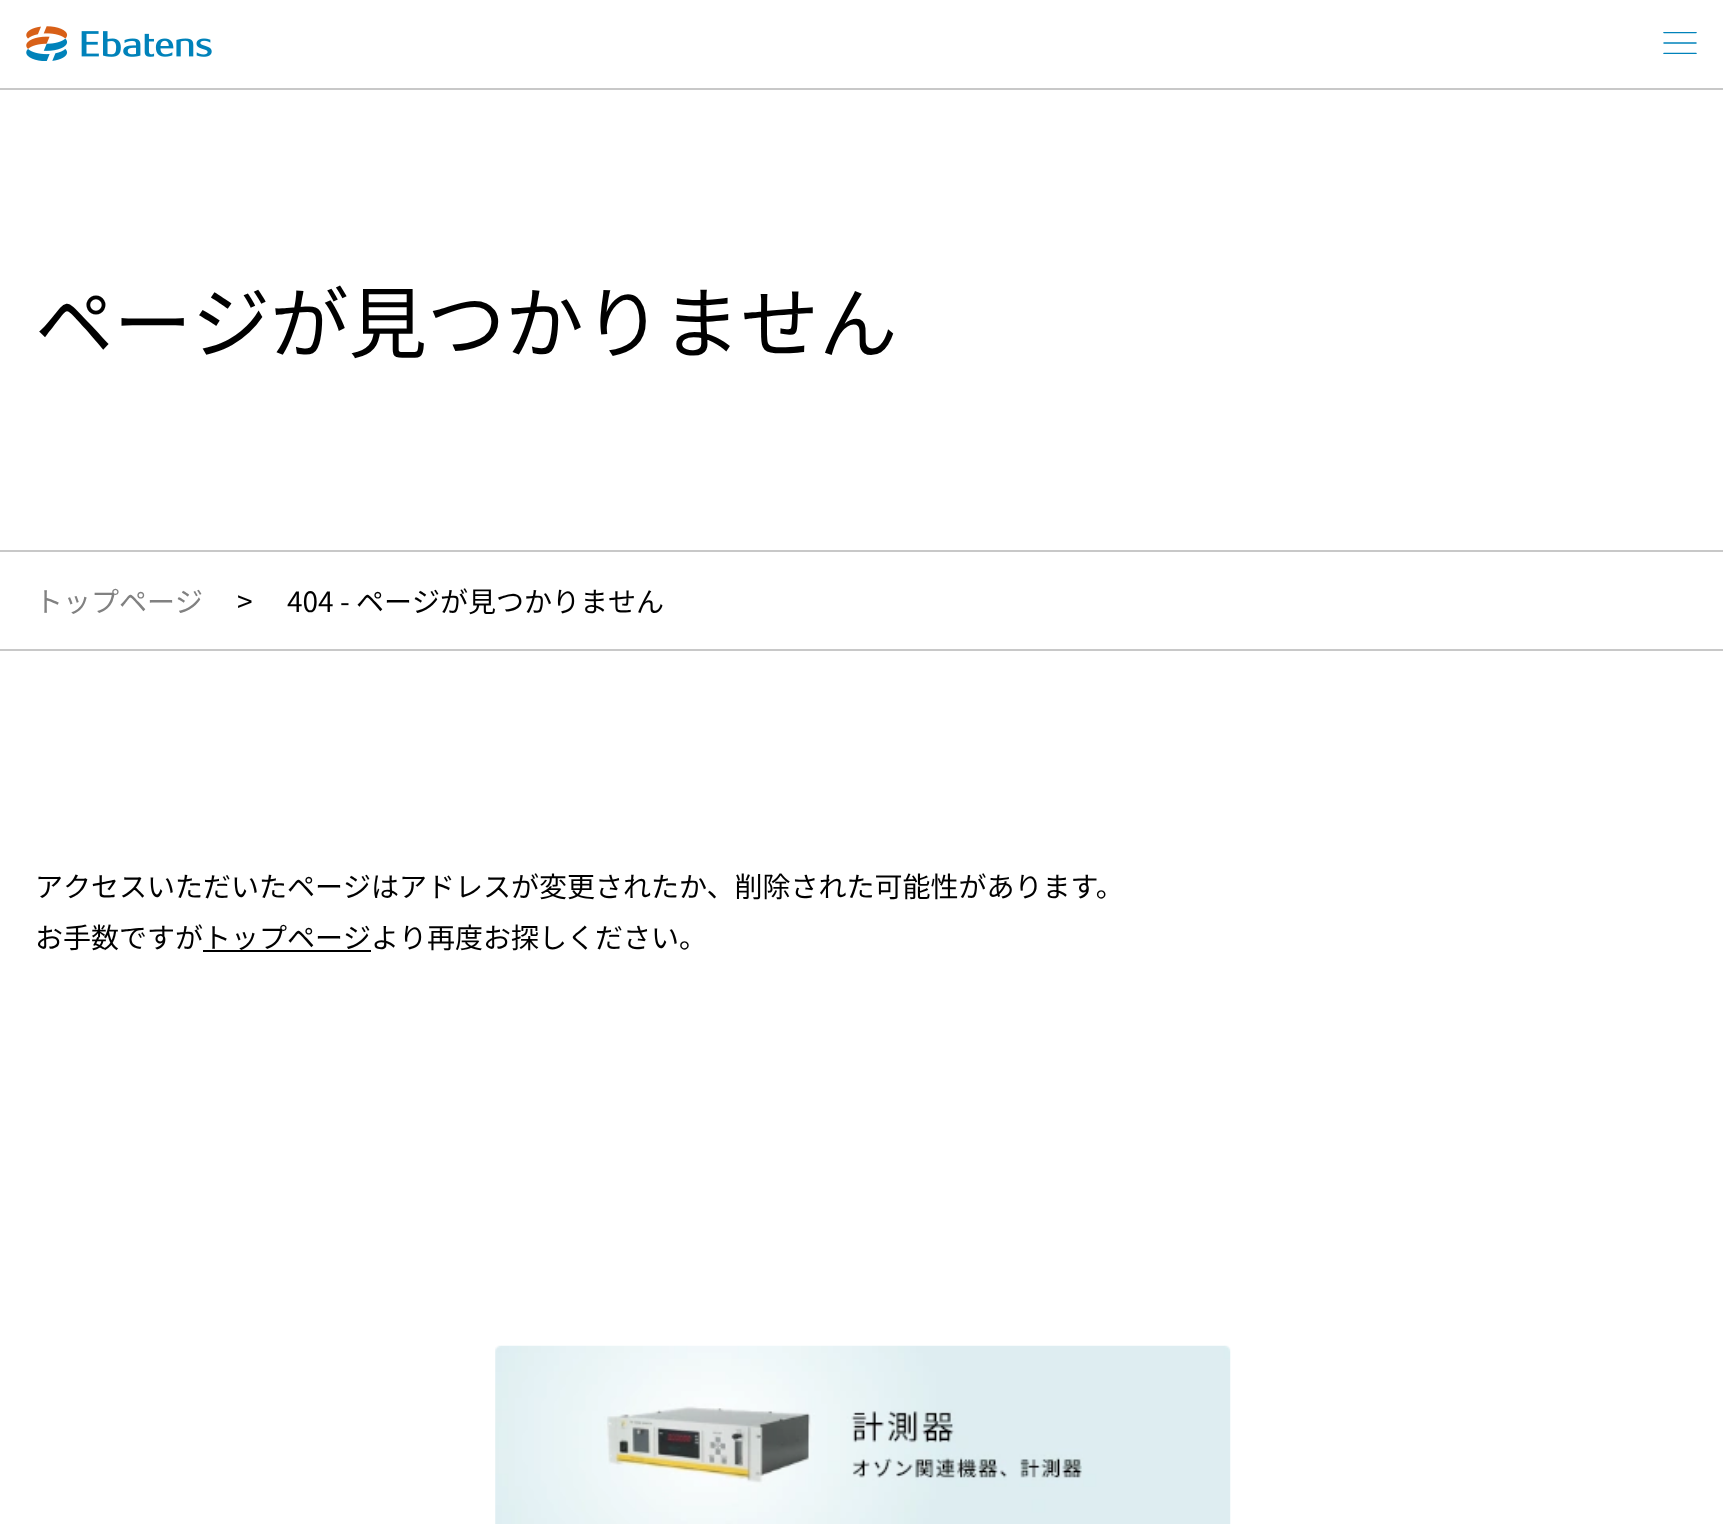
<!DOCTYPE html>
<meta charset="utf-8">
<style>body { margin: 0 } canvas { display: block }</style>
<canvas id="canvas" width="1723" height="1524"></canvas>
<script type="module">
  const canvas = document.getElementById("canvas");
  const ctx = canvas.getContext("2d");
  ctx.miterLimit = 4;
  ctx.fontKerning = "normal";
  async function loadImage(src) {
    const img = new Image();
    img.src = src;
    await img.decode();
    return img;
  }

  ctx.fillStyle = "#ffffff";
  ctx.fillRect(0, 0, 1723, 1524);
  ctx.drawImage(await loadImage("img1.png"), 26, 26, 186, 35);
  ctx.save();
  ctx.beginPath();
  ctx.rect(1663, 32, 35, 22);
  ctx.clip();
  ctx.beginPath();
  ctx.moveTo(1664, 32.5);
  ctx.lineTo(1696, 32.5);
  ctx.strokeStyle = "#0082ba";
  ctx.lineWidth = 1.5;
  ctx.lineCap = "round";
  ctx.stroke();
  ctx.restore();
  ctx.beginPath();
  ctx.moveTo(1664, 43);
  ctx.lineTo(1696, 43);
  ctx.strokeStyle = "#0082ba";
  ctx.lineWidth = 1.5;
  ctx.lineCap = "round";
  ctx.stroke();
  ctx.save();
  ctx.beginPath();
  ctx.rect(1663, 32, 35, 22);
  ctx.clip();
  ctx.beginPath();
  ctx.moveTo(1664, 53.5);
  ctx.lineTo(1696, 53.5);
  ctx.stroke();
  ctx.restore();
  ctx.fillStyle = "#c8c8c8";
  ctx.fillRect(0, 88, 1723, 2);
  ctx.fillRect(0, 550, 1723, 2);
  ctx.font = "78.4px Noto Sans JP";
  ctx.fillStyle = "#000000";
  ctx.fillText("ページが見つかりません", 35, 352);
  ctx.fillStyle = "#c8c8c8";
  ctx.fillRect(0, 649, 1723, 2);
  ctx.font = "28px Noto Sans JP";
  ctx.fillStyle = "#818181";
  ctx.fillText("トップページ", 35, 612);
  ctx.fillStyle = "#000000";
  ctx.fillText(">", 237, 612);
  ctx.fillText("404 - ページが見つかりません", 287, 612);
  ctx.fillText("アクセスいただいたページはアドレスが変更されたか、削除された可能性があります。", 35, 897);
  ctx.fillText("お手数ですが", 35, 948);
  ctx.fillRect(203, 950, 168, 2);
  ctx.fillText("トップページより再度お探しください。", 203, 948);
  ctx.drawImage(await loadImage("img2.png"), 495, 1345, 736, 179);
</script>
